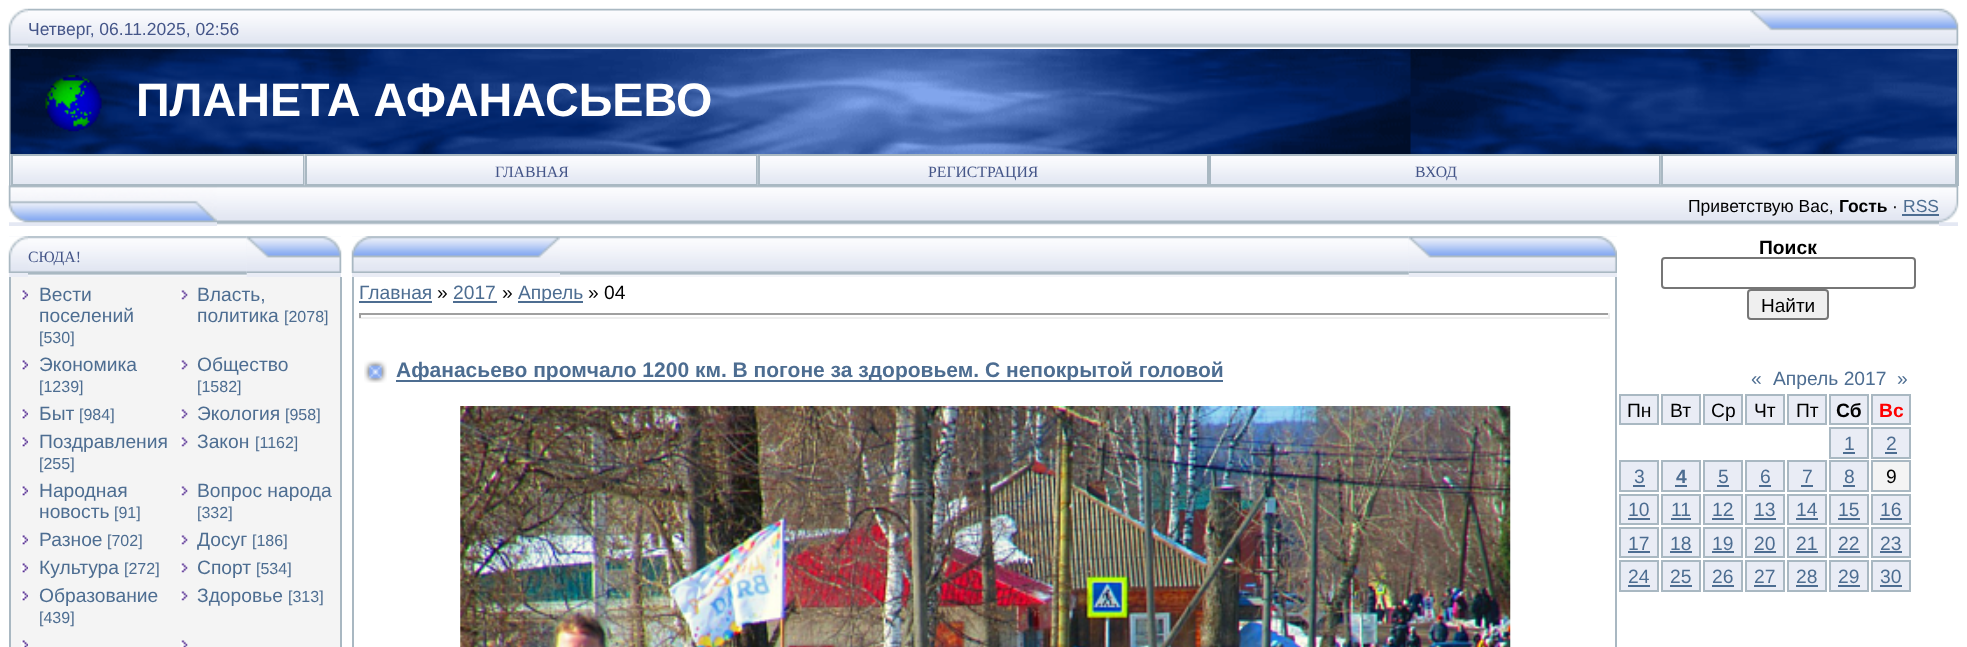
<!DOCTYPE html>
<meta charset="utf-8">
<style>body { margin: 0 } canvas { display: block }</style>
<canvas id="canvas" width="1967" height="647"></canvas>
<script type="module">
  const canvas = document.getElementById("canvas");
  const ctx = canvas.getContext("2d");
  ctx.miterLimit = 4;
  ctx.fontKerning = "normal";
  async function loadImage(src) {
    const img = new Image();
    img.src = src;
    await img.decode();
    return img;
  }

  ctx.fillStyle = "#ffffff";
  ctx.fillRect(0, 0, 1967, 647);
  ctx.fillStyle = "#e4e8f3";
  ctx.fillRect(9, 45, 19, 4);
  ctx.drawImage(await loadImage("img1.png"), 8, 8, 20, 38);
  ctx.drawImage(await loadImage("img2.png"), 28, 8, 1722, 41);
  ctx.font = "17.5px Liberation Sans";
  ctx.fillStyle = "#445588";
  ctx.fillText("Четверг, 06.11.2025, 02:56", 28, 35);
  ctx.fillStyle = "#e4e8f3";
  ctx.fillRect(1750, 45, 208, 4);
  ctx.drawImage(await loadImage("img3.png"), 1750, 8, 209, 38);
  ctx.fillStyle = "#a9b8c2";
  ctx.fillRect(1957, 49, 2, 137);
  ctx.fillRect(9, 49, 2, 137);
  ctx.fillStyle = "#03276e";
  ctx.fillRect(1956, 49, 1, 105);
  ctx.drawImage(await loadImage("img4.png"), 10, 49, 1947, 105);
  ctx.drawImage(await loadImage("img5.png"), 45, 75, 57, 57);
  ctx.font = "bold 46.75px Liberation Sans";
  ctx.fillStyle = "#ffffff";
  ctx.fillText("ПЛАНЕТА АФАНАСЬЕВО", 136, 116);
  ctx.drawImage(await loadImage("img6.png"), 10, 154, 293, 32);
  ctx.strokeStyle = "#a9b8c2";
  ctx.lineWidth = 2;
  ctx.strokeRect(12, 155, 292, 30);
  ctx.drawImage(await loadImage("img7.png"), 304, 154, 452, 32);
  ctx.strokeRect(306, 155, 451, 30);
  ctx.font = "15.75px Liberation Serif";
  ctx.fillStyle = "#445588";
  ctx.fillText("ГЛАВНАЯ", 495, 177);
  ctx.drawImage(await loadImage("img8.png"), 757, 154, 450, 32);
  ctx.strokeRect(759, 155, 449, 30);
  ctx.fillText("РЕГИСТРАЦИЯ", 928, 177);
  ctx.drawImage(await loadImage("img9.png"), 1211, 156, 448, 28);
  ctx.strokeRect(1210, 155, 450, 30);
  ctx.fillText("ВХОД", 1415, 177);
  ctx.drawImage(await loadImage("img10.png"), 1660, 154, 295, 32);
  ctx.strokeRect(1662, 155, 294, 30);
  ctx.fillStyle = "#e4e8f3";
  ctx.fillRect(9, 222, 208, 4);
  ctx.drawImage(await loadImage("img11.png"), 8, 185, 209, 38);
  ctx.drawImage(await loadImage("img12.png"), 217, 185, 1722, 41);
  ctx.font = "17.5px Liberation Sans";
  ctx.fillStyle = "#000000";
  ctx.fillText("Приветствую Вас,", 1688, 212);
  ctx.font = "bold 17.5px Liberation Sans";
  ctx.fillText("Гость", 1839, 212);
  ctx.font = "17.5px Liberation Sans";
  ctx.fillText("·", 1892, 212);
  ctx.fillStyle = "#4d6d91";
  ctx.fillText("RSS", 1903, 212);
  ctx.fillRect(1902, 214, 37, 2);
  ctx.fillStyle = "#e4e8f3";
  ctx.fillRect(1939, 222, 19, 4);
  ctx.drawImage(await loadImage("img13.png"), 1939, 186, 20, 37);
  ctx.fillStyle = "#e9ecf5";
  ctx.fillRect(9, 236, 332, 41);
  ctx.drawImage(await loadImage("img14.png"), 8, 236, 20, 37);
  ctx.drawImage(await loadImage("img15.png"), 28, 236, 219, 41);
  ctx.font = "15.75px Liberation Serif";
  ctx.fillStyle = "#445588";
  ctx.fillText("СЮДА!", 28, 262);
  ctx.drawImage(await loadImage("img16.png"), 246, 236, 96, 37);
  ctx.fillStyle = "#f4f4f4";
  ctx.fillRect(11, 277, 329, 370);
  ctx.fillStyle = "#a9b8c2";
  ctx.fillRect(340, 277, 2, 370);
  ctx.fillRect(9, 277, 2, 370);
  ctx.drawImage(await loadImage("img17.png"), 21, 290, 7, 10);
  ctx.font = "19.25px Liberation Sans";
  ctx.fillStyle = "#4d6d91";
  ctx.fillText("Вести", 39, 301);
  ctx.fillText("поселений", 39, 322);
  ctx.font = "16px Liberation Sans";
  ctx.fillText("[530]", 39, 343);
  ctx.drawImage(await loadImage("img18.png"), 180, 290, 8, 10);
  ctx.font = "19.25px Liberation Sans";
  ctx.fillText("Власть,", 197, 301);
  ctx.fillText("политика", 197, 322);
  ctx.font = "16px Liberation Sans";
  ctx.fillText("[2078]", 284, 322);
  ctx.drawImage(await loadImage("img17.png"), 21, 360, 7, 10);
  ctx.font = "19.25px Liberation Sans";
  ctx.fillText("Экономика", 39, 371);
  ctx.font = "16px Liberation Sans";
  ctx.fillText("[1239]", 39, 392);
  ctx.drawImage(await loadImage("img18.png"), 180, 360, 8, 10);
  ctx.font = "19.25px Liberation Sans";
  ctx.fillText("Общество", 197, 371);
  ctx.font = "16px Liberation Sans";
  ctx.fillText("[1582]", 197, 392);
  ctx.drawImage(await loadImage("img17.png"), 21, 409, 7, 10);
  ctx.font = "19.25px Liberation Sans";
  ctx.fillText("Быт", 39, 420);
  ctx.font = "16px Liberation Sans";
  ctx.fillText("[984]", 79, 420);
  ctx.drawImage(await loadImage("img18.png"), 180, 409, 8, 10);
  ctx.font = "19.25px Liberation Sans";
  ctx.fillText("Экология", 197, 420);
  ctx.font = "16px Liberation Sans";
  ctx.fillText("[958]", 285, 420);
  ctx.drawImage(await loadImage("img17.png"), 21, 437, 7, 10);
  ctx.font = "19.25px Liberation Sans";
  ctx.fillText("Поздравления", 39, 448);
  ctx.font = "16px Liberation Sans";
  ctx.fillText("[255]", 39, 469);
  ctx.drawImage(await loadImage("img18.png"), 180, 437, 8, 10);
  ctx.font = "19.25px Liberation Sans";
  ctx.fillText("Закон", 197, 448);
  ctx.font = "16px Liberation Sans";
  ctx.fillText("[1162]", 255, 448);
  ctx.drawImage(await loadImage("img17.png"), 21, 486, 7, 10);
  ctx.font = "19.25px Liberation Sans";
  ctx.fillText("Народная", 39, 497);
  ctx.fillText("новость", 39, 518);
  ctx.font = "16px Liberation Sans";
  ctx.fillText("[91]", 114, 518);
  ctx.drawImage(await loadImage("img18.png"), 180, 486, 8, 10);
  ctx.font = "19.25px Liberation Sans";
  ctx.fillText("Вопрос народа", 197, 497);
  ctx.font = "16px Liberation Sans";
  ctx.fillText("[332]", 197, 518);
  ctx.drawImage(await loadImage("img17.png"), 21, 535, 7, 10);
  ctx.font = "19.25px Liberation Sans";
  ctx.fillText("Разное", 39, 546);
  ctx.font = "16px Liberation Sans";
  ctx.fillText("[702]", 107, 546);
  ctx.drawImage(await loadImage("img18.png"), 180, 535, 8, 10);
  ctx.font = "19.25px Liberation Sans";
  ctx.fillText("Досуг", 197, 546);
  ctx.font = "16px Liberation Sans";
  ctx.fillText("[186]", 252, 546);
  ctx.drawImage(await loadImage("img17.png"), 21, 563, 7, 10);
  ctx.font = "19.25px Liberation Sans";
  ctx.fillText("Культура", 39, 574);
  ctx.font = "16px Liberation Sans";
  ctx.fillText("[272]", 124, 574);
  ctx.drawImage(await loadImage("img18.png"), 180, 563, 8, 10);
  ctx.font = "19.25px Liberation Sans";
  ctx.fillText("Спорт", 197, 574);
  ctx.font = "16px Liberation Sans";
  ctx.fillText("[534]", 256, 574);
  ctx.drawImage(await loadImage("img17.png"), 21, 591, 7, 10);
  ctx.font = "19.25px Liberation Sans";
  ctx.fillText("Образование", 39, 602);
  ctx.font = "16px Liberation Sans";
  ctx.fillText("[439]", 39, 623);
  ctx.drawImage(await loadImage("img18.png"), 180, 591, 8, 10);
  ctx.font = "19.25px Liberation Sans";
  ctx.fillText("Здоровье", 197, 602);
  ctx.font = "16px Liberation Sans";
  ctx.fillText("[313]", 288, 602);
  ctx.drawImage(await loadImage("img19.png"), 21, 640, 7, 7);
  ctx.drawImage(await loadImage("img20.png"), 180, 640, 8, 7);
  ctx.fillStyle = "#e9ecf5";
  ctx.fillRect(352, 236, 1265, 41);
  ctx.drawImage(await loadImage("img21.png"), 351, 236, 209, 37);
  ctx.drawImage(await loadImage("img22.png"), 560, 236, 849, 41);
  ctx.drawImage(await loadImage("img23.png"), 1408, 236, 209, 37);
  ctx.fillStyle = "#a9b8c2";
  ctx.fillRect(1615, 277, 2, 370);
  ctx.fillRect(352, 277, 2, 370);
  ctx.font = "19.25px Liberation Sans";
  ctx.fillStyle = "#4d6d91";
  ctx.fillText("Главная", 359, 299);
  ctx.fillRect(359, 301, 73, 2);
  ctx.fillStyle = "#000000";
  ctx.fillText("»", 437, 299);
  ctx.fillStyle = "#4d6d91";
  ctx.fillText("2017", 453, 299);
  ctx.fillRect(453, 301, 44, 2);
  ctx.fillStyle = "#000000";
  ctx.fillText("»", 502, 299);
  ctx.fillStyle = "#4d6d91";
  ctx.fillRect(518, 301, 65, 2);
  ctx.fillText("Апрель", 518, 299);
  ctx.fillStyle = "#000000";
  ctx.fillText("» 04", 588, 299);
  ctx.fillStyle = "#9f9f9f";
  ctx.fillRect(359, 313, 1251, 2);
  ctx.fillStyle = "#eeeeee";
  ctx.fillRect(1608, 313, 2, 5);
  ctx.fillRect(359, 317, 1251, 2);
  ctx.fillStyle = "#9f9f9f";
  ctx.fillRect(359, 313, 2, 5);
  ctx.drawImage(await loadImage("img24.png"), 364, 360, 23, 23);
  ctx.fillStyle = "#4d6d91";
  ctx.fillRect(396, 380, 827, 2);
  ctx.font = "bold 21px Liberation Sans";
  ctx.fillText("Афанасьево промчало 1200 км. В погоне за здоровьем. С непокрытой головой", 396, 377);
  ctx.drawImage(await loadImage("img25.png"), 460, 406, 1051, 241);
  ctx.font = "bold 19.25px Liberation Sans";
  ctx.fillStyle = "#000000";
  ctx.fillText("Поиск", 1759, 254);
  ctx.beginPath();
  ctx.roundRect(1662, 258, 253, 30, 3);
  ctx.strokeStyle = "#767676";
  ctx.stroke();
  ctx.fillStyle = "#efefef";
  ctx.beginPath();
  ctx.roundRect(1748, 290, 80, 29, 3);
  ctx.fill();
  ctx.stroke();
  ctx.font = "19px Liberation Sans";
  ctx.fillStyle = "#000000";
  ctx.fillText("Найти", 1761, 312);
  ctx.font = "19.25px Liberation Sans";
  ctx.fillStyle = "#4d6d91";
  ctx.fillText("«", 1751, 385);
  ctx.fillText("Апрель 2017", 1773, 385);
  ctx.fillText("»", 1897, 385);
  ctx.fillStyle = "#e9ecf5";
  ctx.beginPath();
  ctx.rect(1620, 395, 38, 29);
  ctx.fill();
  ctx.strokeStyle = "#a9b8c2";
  ctx.stroke();
  ctx.fillStyle = "#000000";
  ctx.fillText("Пн", 1627, 417);
  ctx.fillStyle = "#e9ecf5";
  ctx.beginPath();
  ctx.rect(1662, 395, 38, 29);
  ctx.fill();
  ctx.stroke();
  ctx.fillStyle = "#000000";
  ctx.fillText("Вт", 1670, 417);
  ctx.fillStyle = "#e9ecf5";
  ctx.beginPath();
  ctx.rect(1704, 395, 38, 29);
  ctx.fill();
  ctx.stroke();
  ctx.fillStyle = "#000000";
  ctx.fillText("Ср", 1711, 417);
  ctx.fillStyle = "#e9ecf5";
  ctx.beginPath();
  ctx.rect(1746, 395, 38, 29);
  ctx.fill();
  ctx.stroke();
  ctx.fillStyle = "#000000";
  ctx.fillText("Чт", 1754, 417);
  ctx.fillStyle = "#e9ecf5";
  ctx.beginPath();
  ctx.rect(1788, 395, 38, 29);
  ctx.fill();
  ctx.stroke();
  ctx.fillStyle = "#000000";
  ctx.fillText("Пт", 1796, 417);
  ctx.fillStyle = "#e9ecf5";
  ctx.beginPath();
  ctx.rect(1830, 395, 38, 29);
  ctx.fill();
  ctx.stroke();
  ctx.font = "bold 19.25px Liberation Sans";
  ctx.fillStyle = "#000000";
  ctx.fillText("Сб", 1836, 417);
  ctx.fillStyle = "#e9ecf5";
  ctx.beginPath();
  ctx.rect(1872, 395, 38, 29);
  ctx.fill();
  ctx.stroke();
  ctx.fillStyle = "#ff0000";
  ctx.fillText("Вс", 1879, 417);
  ctx.fillStyle = "#e9ecf5";
  ctx.beginPath();
  ctx.rect(1830, 428, 38, 30);
  ctx.fill();
  ctx.stroke();
  ctx.font = "19.25px Liberation Sans";
  ctx.fillStyle = "#4d6d91";
  ctx.fillText("1", 1844, 450);
  ctx.fillRect(1843, 452, 12, 2);
  ctx.fillStyle = "#e9ecf5";
  ctx.beginPath();
  ctx.rect(1872, 428, 38, 30);
  ctx.fill();
  ctx.stroke();
  ctx.fillStyle = "#4d6d91";
  ctx.fillText("2", 1886, 450);
  ctx.fillRect(1885, 452, 12, 2);
  ctx.fillStyle = "#e9ecf5";
  ctx.beginPath();
  ctx.rect(1620, 461, 38, 30);
  ctx.fill();
  ctx.stroke();
  ctx.fillStyle = "#4d6d91";
  ctx.fillText("3", 1634, 483);
  ctx.fillRect(1633, 485, 12, 2);
  ctx.fillStyle = "#e9ecf5";
  ctx.beginPath();
  ctx.rect(1662, 461, 38, 30);
  ctx.fill();
  ctx.stroke();
  ctx.font = "bold 19.25px Liberation Sans";
  ctx.fillStyle = "#4d6d91";
  ctx.fillText("4", 1676, 483);
  ctx.fillRect(1675, 485, 12, 2);
  ctx.fillStyle = "#e9ecf5";
  ctx.beginPath();
  ctx.rect(1704, 461, 38, 30);
  ctx.fill();
  ctx.stroke();
  ctx.font = "19.25px Liberation Sans";
  ctx.fillStyle = "#4d6d91";
  ctx.fillText("5", 1718, 483);
  ctx.fillRect(1717, 485, 12, 2);
  ctx.fillStyle = "#e9ecf5";
  ctx.beginPath();
  ctx.rect(1746, 461, 38, 30);
  ctx.fill();
  ctx.stroke();
  ctx.fillStyle = "#4d6d91";
  ctx.fillText("6", 1760, 483);
  ctx.fillRect(1759, 485, 12, 2);
  ctx.fillStyle = "#e9ecf5";
  ctx.beginPath();
  ctx.rect(1788, 461, 38, 30);
  ctx.fill();
  ctx.stroke();
  ctx.fillStyle = "#4d6d91";
  ctx.fillText("7", 1802, 483);
  ctx.fillRect(1801, 485, 12, 2);
  ctx.fillStyle = "#e9ecf5";
  ctx.beginPath();
  ctx.rect(1830, 461, 38, 30);
  ctx.fill();
  ctx.stroke();
  ctx.fillStyle = "#4d6d91";
  ctx.fillText("8", 1844, 483);
  ctx.fillRect(1843, 485, 12, 2);
  ctx.fillStyle = "#f4f4f4";
  ctx.beginPath();
  ctx.rect(1872, 461, 38, 30);
  ctx.fill();
  ctx.stroke();
  ctx.fillStyle = "#000000";
  ctx.fillText("9", 1886, 483);
  ctx.fillStyle = "#e9ecf5";
  ctx.beginPath();
  ctx.rect(1620, 495, 38, 29);
  ctx.fill();
  ctx.stroke();
  ctx.fillStyle = "#4d6d91";
  ctx.fillText("10", 1628, 516);
  ctx.fillRect(1628, 518, 22, 2);
  ctx.fillStyle = "#e9ecf5";
  ctx.beginPath();
  ctx.rect(1662, 495, 38, 29);
  ctx.fill();
  ctx.stroke();
  ctx.fillStyle = "#4d6d91";
  ctx.fillText("11", 1671, 516);
  ctx.fillRect(1671, 518, 20, 2);
  ctx.fillStyle = "#e9ecf5";
  ctx.beginPath();
  ctx.rect(1704, 495, 38, 29);
  ctx.fill();
  ctx.stroke();
  ctx.fillStyle = "#4d6d91";
  ctx.fillText("12", 1712, 516);
  ctx.fillRect(1712, 518, 22, 2);
  ctx.fillStyle = "#e9ecf5";
  ctx.beginPath();
  ctx.rect(1746, 495, 38, 29);
  ctx.fill();
  ctx.stroke();
  ctx.fillStyle = "#4d6d91";
  ctx.fillText("13", 1754, 516);
  ctx.fillRect(1754, 518, 22, 2);
  ctx.fillStyle = "#e9ecf5";
  ctx.beginPath();
  ctx.rect(1788, 495, 38, 29);
  ctx.fill();
  ctx.stroke();
  ctx.fillStyle = "#4d6d91";
  ctx.fillText("14", 1796, 516);
  ctx.fillRect(1796, 518, 22, 2);
  ctx.fillStyle = "#e9ecf5";
  ctx.beginPath();
  ctx.rect(1830, 495, 38, 29);
  ctx.fill();
  ctx.stroke();
  ctx.fillStyle = "#4d6d91";
  ctx.fillText("15", 1838, 516);
  ctx.fillRect(1838, 518, 22, 2);
  ctx.fillStyle = "#e9ecf5";
  ctx.beginPath();
  ctx.rect(1872, 495, 38, 29);
  ctx.fill();
  ctx.stroke();
  ctx.fillStyle = "#4d6d91";
  ctx.fillText("16", 1880, 516);
  ctx.fillRect(1880, 518, 22, 2);
  ctx.fillStyle = "#e9ecf5";
  ctx.beginPath();
  ctx.rect(1620, 528, 38, 29);
  ctx.fill();
  ctx.stroke();
  ctx.fillStyle = "#4d6d91";
  ctx.fillText("17", 1628, 550);
  ctx.fillRect(1628, 551, 22, 2);
  ctx.fillStyle = "#e9ecf5";
  ctx.beginPath();
  ctx.rect(1662, 528, 38, 29);
  ctx.fill();
  ctx.stroke();
  ctx.fillStyle = "#4d6d91";
  ctx.fillText("18", 1670, 550);
  ctx.fillRect(1670, 551, 22, 2);
  ctx.fillStyle = "#e9ecf5";
  ctx.beginPath();
  ctx.rect(1704, 528, 38, 29);
  ctx.fill();
  ctx.stroke();
  ctx.fillStyle = "#4d6d91";
  ctx.fillText("19", 1712, 550);
  ctx.fillRect(1712, 551, 22, 2);
  ctx.fillStyle = "#e9ecf5";
  ctx.beginPath();
  ctx.rect(1746, 528, 38, 29);
  ctx.fill();
  ctx.stroke();
  ctx.fillStyle = "#4d6d91";
  ctx.fillText("20", 1754, 550);
  ctx.fillRect(1754, 551, 22, 2);
  ctx.fillStyle = "#e9ecf5";
  ctx.beginPath();
  ctx.rect(1788, 528, 38, 29);
  ctx.fill();
  ctx.stroke();
  ctx.fillStyle = "#4d6d91";
  ctx.fillText("21", 1796, 550);
  ctx.fillRect(1796, 551, 22, 2);
  ctx.fillStyle = "#e9ecf5";
  ctx.beginPath();
  ctx.rect(1830, 528, 38, 29);
  ctx.fill();
  ctx.stroke();
  ctx.fillStyle = "#4d6d91";
  ctx.fillText("22", 1838, 550);
  ctx.fillRect(1838, 551, 22, 2);
  ctx.fillStyle = "#e9ecf5";
  ctx.beginPath();
  ctx.rect(1872, 528, 38, 29);
  ctx.fill();
  ctx.stroke();
  ctx.fillStyle = "#4d6d91";
  ctx.fillText("23", 1880, 550);
  ctx.fillRect(1880, 551, 22, 2);
  ctx.fillStyle = "#e9ecf5";
  ctx.beginPath();
  ctx.rect(1620, 561, 38, 30);
  ctx.fill();
  ctx.stroke();
  ctx.fillStyle = "#4d6d91";
  ctx.fillText("24", 1628, 583);
  ctx.fillRect(1628, 585, 22, 2);
  ctx.fillStyle = "#e9ecf5";
  ctx.beginPath();
  ctx.rect(1662, 561, 38, 30);
  ctx.fill();
  ctx.stroke();
  ctx.fillStyle = "#4d6d91";
  ctx.fillText("25", 1670, 583);
  ctx.fillRect(1670, 585, 22, 2);
  ctx.fillStyle = "#e9ecf5";
  ctx.beginPath();
  ctx.rect(1704, 561, 38, 30);
  ctx.fill();
  ctx.stroke();
  ctx.fillStyle = "#4d6d91";
  ctx.fillText("26", 1712, 583);
  ctx.fillRect(1712, 585, 22, 2);
  ctx.fillStyle = "#e9ecf5";
  ctx.beginPath();
  ctx.rect(1746, 561, 38, 30);
  ctx.fill();
  ctx.stroke();
  ctx.fillStyle = "#4d6d91";
  ctx.fillText("27", 1754, 583);
  ctx.fillRect(1754, 585, 22, 2);
  ctx.fillStyle = "#e9ecf5";
  ctx.beginPath();
  ctx.rect(1788, 561, 38, 30);
  ctx.fill();
  ctx.stroke();
  ctx.fillStyle = "#4d6d91";
  ctx.fillText("28", 1796, 583);
  ctx.fillRect(1796, 585, 22, 2);
  ctx.fillStyle = "#e9ecf5";
  ctx.beginPath();
  ctx.rect(1830, 561, 38, 30);
  ctx.fill();
  ctx.stroke();
  ctx.fillStyle = "#4d6d91";
  ctx.fillText("29", 1838, 583);
  ctx.fillRect(1838, 585, 22, 2);
  ctx.fillStyle = "#e9ecf5";
  ctx.beginPath();
  ctx.rect(1872, 561, 38, 30);
  ctx.fill();
  ctx.stroke();
  ctx.fillStyle = "#4d6d91";
  ctx.fillText("30", 1880, 583);
  ctx.fillRect(1880, 585, 22, 2);
</script>
